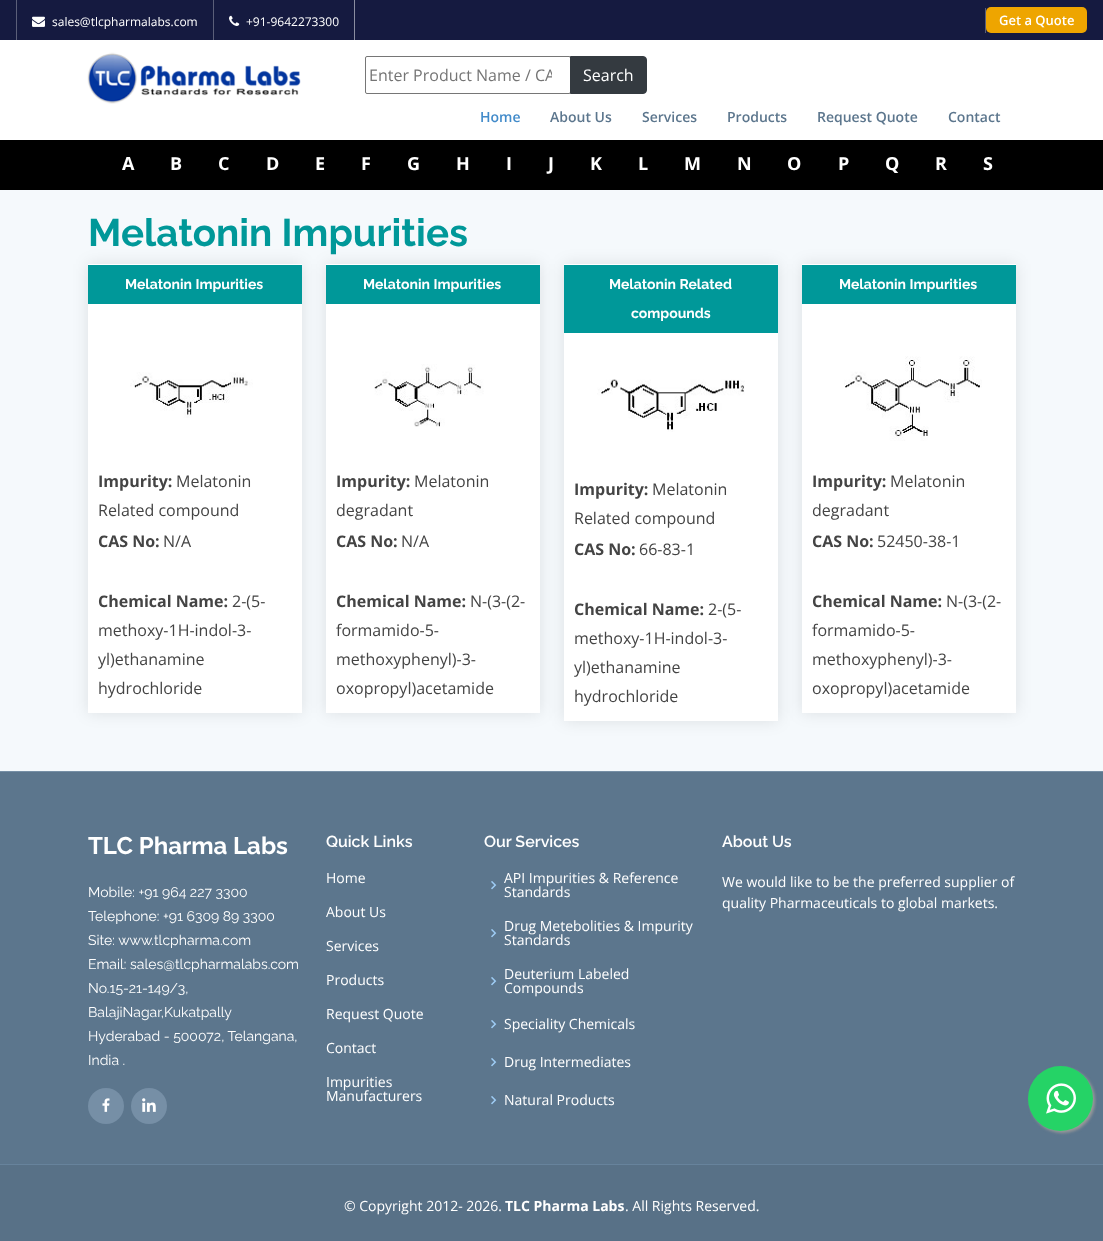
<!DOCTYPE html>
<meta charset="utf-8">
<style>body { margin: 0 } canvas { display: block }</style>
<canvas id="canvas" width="1103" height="1241"></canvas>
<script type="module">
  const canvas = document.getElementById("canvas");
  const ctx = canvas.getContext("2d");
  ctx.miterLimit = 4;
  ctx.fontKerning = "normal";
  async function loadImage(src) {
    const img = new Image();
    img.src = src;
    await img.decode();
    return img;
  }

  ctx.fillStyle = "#000000";
  ctx.fillRect(0, 0, 1103, 1241);
  ctx.fillStyle = "#ffffff";
  ctx.fillRect(0, 40, 1103, 100);
  ctx.fillStyle = "#151a40";
  ctx.fillRect(0, 0, 1103, 40);
  ctx.fillStyle = "#8a8da0";
  ctx.fillRect(354, 0, 1, 40);
  ctx.fillStyle = "#5b5f79";
  ctx.fillRect(16, 0, 1, 40);
  ctx.drawImage(await loadImage("img1.png"), 32, 16, 13, 11);
  ctx.font = "12px Open Sans";
  ctx.fillStyle = "#ffffff";
  ctx.fillText("sales@tlcpharmalabs.com", 52, 26);
  ctx.fillStyle = "#5b5f79";
  ctx.fillRect(213, 0, 1, 40);
  ctx.drawImage(await loadImage("img2.png"), 229, 15, 11, 11);
  ctx.fillStyle = "#ffffff";
  ctx.fillText("+91-9642273300", 246, 26);
  ctx.fillStyle = "#5b5f79";
  ctx.fillRect(985, 8, 1, 25);
  ctx.fillStyle = "#eea500";
  ctx.beginPath();
  ctx.roundRect(986, 7, 101, 26, 5);
  ctx.fill();
  ctx.font = "600 13px Open Sans";
  ctx.fillStyle = "#ffffff";
  ctx.fillText("Get a Quote", 999, 25);
  ctx.drawImage(await loadImage("img3.png"), 87, 52, 214, 52);
  ctx.beginPath();
  ctx.roundRect(365.5, 56.5, 205, 37, 1.5);
  ctx.strokeStyle = "#767676";
  ctx.stroke();
  ctx.save();
  ctx.beginPath();
  ctx.rect(369, 64, 183, 22);
  ctx.clip();
  ctx.font = "16px Open Sans";
  ctx.fillStyle = "#757575";
  ctx.fillText("Enter Product Name / CA", 369, 81);
  ctx.restore();
  ctx.fillStyle = "#343a40";
  ctx.beginPath();
  ctx.roundRect(570.5, 56.5, 76, 37, [0, 3.5, 3.5, 0]);
  ctx.fill();
  ctx.strokeStyle = "#343a40";
  ctx.stroke();
  ctx.font = "16px Open Sans";
  ctx.fillStyle = "#ffffff";
  ctx.fillText("Search", 583, 81);
  ctx.font = "600 14px Open Sans";
  ctx.fillStyle = "#428bca";
  ctx.fillText("Home", 480, 122);
  ctx.fillStyle = "#5c768d";
  ctx.fillText("About Us", 550, 122);
  ctx.fillText("Services", 642, 122);
  ctx.fillText("Products", 727, 122);
  ctx.fillText("Request Quote", 817, 122);
  ctx.fillText("Contact", 948, 122);
  ctx.font = "bold 18px Open Sans";
  ctx.fillStyle = "#ffffff";
  ctx.fillText("A", 122, 170);
  ctx.fillText("B", 170, 170);
  ctx.fillText("C", 218, 170);
  ctx.fillText("D", 266, 170);
  ctx.fillText("E", 315, 170);
  ctx.fillText("F", 361, 170);
  ctx.fillText("G", 407, 170);
  ctx.fillText("H", 456, 170);
  ctx.fillText("I", 506, 170);
  ctx.fillText("J", 548, 170);
  ctx.fillText("K", 590, 170);
  ctx.fillText("L", 638, 170);
  ctx.fillText("M", 684, 170);
  ctx.fillText("N", 737, 170);
  ctx.fillText("O", 787, 170);
  ctx.fillText("P", 838, 170);
  ctx.fillText("Q", 885, 170);
  ctx.fillText("R", 935, 170);
  ctx.fillText("S", 983, 170);
  ctx.fillStyle = "#f5f9fc";
  ctx.fillRect(0, 190, 1103, 581);
  ctx.font = "bold 38.5px Raleway";
  ctx.fillStyle = "#009899";
  ctx.fillText("Melatonin Impurities", 88, 246);
  ctx.fillStyle = "rgba(0, 0, 0, 0.1)";
  ctx.filter = "blur(8px)";
  ctx.beginPath();
  ctx.rect(88, 264, 214, 449);
  ctx.fill();
  ctx.filter = "none";
  ctx.fillStyle = "#ffffff";
  ctx.fillRect(88, 264, 214, 449);
  ctx.fillStyle = "#009899";
  ctx.fillRect(88, 265, 214, 39);
  ctx.font = "bold 14px Raleway";
  ctx.fillStyle = "#ffffff";
  ctx.fillText("Melatonin Impurities", 125, 289);
  ctx.drawImage(await loadImage("img4.png"), 130, 372, 123, 46);
  ctx.font = "bold 16px Open Sans";
  ctx.fillStyle = "#444444";
  ctx.fillText("Impurity:", 98, 487);
  ctx.font = "16px Open Sans";
  ctx.fillText("Melatonin", 176, 487);
  ctx.fillText("Related compound", 98, 516);
  ctx.font = "bold 16px Open Sans";
  ctx.fillText("CAS No:", 98, 547);
  ctx.font = "16px Open Sans";
  ctx.fillText("N/A", 163, 547);
  ctx.font = "bold 16px Open Sans";
  ctx.fillText("Chemical Name:", 98, 607);
  ctx.font = "16px Open Sans";
  ctx.fillText("2-(5-", 232, 607);
  ctx.fillText("methoxy-1H-indol-3-", 98, 636);
  ctx.fillText("yl)ethanamine", 98, 665);
  ctx.fillText("hydrochloride", 98, 694);
  ctx.fillStyle = "rgba(0, 0, 0, 0.1)";
  ctx.filter = "blur(8px)";
  ctx.beginPath();
  ctx.rect(326, 264, 214, 449);
  ctx.fill();
  ctx.filter = "none";
  ctx.fillStyle = "#ffffff";
  ctx.fillRect(326, 264, 214, 449);
  ctx.fillStyle = "#009899";
  ctx.fillRect(326, 265, 214, 39);
  ctx.font = "bold 14px Raleway";
  ctx.fillStyle = "#ffffff";
  ctx.fillText("Melatonin Impurities", 363, 289);
  ctx.drawImage(await loadImage("img5.png"), 374, 364, 110, 63);
  ctx.font = "bold 16px Open Sans";
  ctx.fillStyle = "#444444";
  ctx.fillText("Impurity:", 336, 487);
  ctx.font = "16px Open Sans";
  ctx.fillText("Melatonin", 414, 487);
  ctx.fillText("degradant", 336, 516);
  ctx.font = "bold 16px Open Sans";
  ctx.fillText("CAS No:", 336, 547);
  ctx.font = "16px Open Sans";
  ctx.fillText("N/A", 401, 547);
  ctx.font = "bold 16px Open Sans";
  ctx.fillText("Chemical Name:", 336, 607);
  ctx.font = "16px Open Sans";
  ctx.fillText("N-(3-(2-", 470, 607);
  ctx.fillText("formamido-5-", 336, 636);
  ctx.fillText("methoxyphenyl)-3-", 336, 665);
  ctx.fillText("oxopropyl)acetamide", 336, 694);
  ctx.fillStyle = "rgba(0, 0, 0, 0.1)";
  ctx.filter = "blur(8px)";
  ctx.beginPath();
  ctx.rect(564, 264, 214, 457);
  ctx.fill();
  ctx.filter = "none";
  ctx.fillStyle = "#ffffff";
  ctx.fillRect(564, 264, 214, 457);
  ctx.fillStyle = "#009899";
  ctx.fillRect(564, 265, 214, 68);
  ctx.font = "bold 14px Raleway";
  ctx.fillStyle = "#ffffff";
  ctx.fillText("Melatonin Related", 609, 289);
  ctx.fillText("compounds", 631, 318);
  ctx.drawImage(await loadImage("img6.png"), 597, 379, 148, 53);
  ctx.font = "bold 16px Open Sans";
  ctx.fillStyle = "#444444";
  ctx.fillText("Impurity:", 574, 495);
  ctx.font = "16px Open Sans";
  ctx.fillText("Melatonin", 652, 495);
  ctx.fillText("Related compound", 574, 524);
  ctx.font = "bold 16px Open Sans";
  ctx.fillText("CAS No:", 574, 555);
  ctx.font = "16px Open Sans";
  ctx.fillText("66-83-1", 639, 555);
  ctx.font = "bold 16px Open Sans";
  ctx.fillText("Chemical Name:", 574, 615);
  ctx.font = "16px Open Sans";
  ctx.fillText("2-(5-", 708, 615);
  ctx.fillText("methoxy-1H-indol-3-", 574, 644);
  ctx.fillText("yl)ethanamine", 574, 673);
  ctx.fillText("hydrochloride", 574, 702);
  ctx.fillStyle = "rgba(0, 0, 0, 0.1)";
  ctx.filter = "blur(8px)";
  ctx.beginPath();
  ctx.rect(802, 264, 214, 449);
  ctx.fill();
  ctx.filter = "none";
  ctx.fillStyle = "#ffffff";
  ctx.fillRect(802, 264, 214, 449);
  ctx.fillStyle = "#009899";
  ctx.fillRect(802, 265, 214, 39);
  ctx.font = "bold 14px Raleway";
  ctx.fillStyle = "#ffffff";
  ctx.fillText("Melatonin Impurities", 839, 289);
  ctx.drawImage(await loadImage("img7.png"), 844, 356, 138, 85);
  ctx.font = "bold 16px Open Sans";
  ctx.fillStyle = "#444444";
  ctx.fillText("Impurity:", 812, 487);
  ctx.font = "16px Open Sans";
  ctx.fillText("Melatonin", 890, 487);
  ctx.fillText("degradant", 812, 516);
  ctx.font = "bold 16px Open Sans";
  ctx.fillText("CAS No:", 812, 547);
  ctx.font = "16px Open Sans";
  ctx.fillText("52450-38-1", 877, 547);
  ctx.font = "bold 16px Open Sans";
  ctx.fillText("Chemical Name:", 812, 607);
  ctx.font = "16px Open Sans";
  ctx.fillText("N-(3-(2-", 946, 607);
  ctx.fillText("formamido-5-", 812, 636);
  ctx.fillText("methoxyphenyl)-3-", 812, 665);
  ctx.fillText("oxopropyl)acetamide", 812, 694);
  ctx.fillStyle = "#587187";
  ctx.fillRect(0, 1165, 1103, 76);
  ctx.fillStyle = "#5c768d";
  ctx.fillRect(0, 772, 1103, 392);
  ctx.fillStyle = "#768fa6";
  ctx.fillRect(0, 771, 1103, 1);
  ctx.fillStyle = "#67839c";
  ctx.fillRect(0, 1164, 1103, 1);
  ctx.font = "bold 24px Raleway";
  ctx.fillStyle = "#ffffff";
  ctx.fillText("TLC Pharma Labs", 88, 854);
  ctx.font = "14px Raleway";
  ctx.fillText("Mobile: +91 964 227 3300", 88, 897);
  ctx.fillText("Telephone: +91 6309 89 3300", 88, 921);
  ctx.fillText("Site: www.tlcpharma.com", 88, 945);
  ctx.fillText("Email: sales@tlcpharmalabs.com", 88, 969);
  ctx.fillText("No.15-21-149/3,", 88, 993);
  ctx.fillText("BalajiNagar,Kukatpally", 88, 1017);
  ctx.fillText("Hyderabad - 500072, Telangana,", 88, 1041);
  ctx.fillText("India .", 88, 1065);
  ctx.fillStyle = "#768fa6";
  ctx.beginPath();
  ctx.arc(106, 1106, 18, 0, Math.PI * 2);
  ctx.fill();
  ctx.drawImage(await loadImage("img8.png"), 102, 1098, 8, 14);
  ctx.beginPath();
  ctx.arc(149, 1106, 18, 0, Math.PI * 2);
  ctx.fill();
  ctx.drawImage(await loadImage("img9.png"), 142, 1098, 14, 14);
  ctx.font = "600 16px Raleway";
  ctx.fillStyle = "#ffffff";
  ctx.fillText("Quick Links", 326, 847);
  ctx.font = "14px Open Sans";
  ctx.fillText("Home", 326, 883);
  ctx.fillText("About Us", 326, 917);
  ctx.fillText("Services", 326, 951);
  ctx.fillText("Products", 326, 985);
  ctx.fillText("Request Quote", 326, 1019);
  ctx.fillText("Contact", 326, 1053);
  ctx.fillText("Impurities", 326, 1087);
  ctx.fillText("Manufacturers", 326, 1101);
  ctx.font = "600 16px Raleway";
  ctx.fillText("Our Services", 484, 847);
  ctx.drawImage(await loadImage("img10.png"), 491, 881, 6, 9);
  ctx.font = "14px Open Sans";
  ctx.fillText("API Impurities & Reference", 504, 883);
  ctx.fillText("Standards", 504, 897);
  ctx.drawImage(await loadImage("img10.png"), 491, 929, 6, 9);
  ctx.fillText("Drug Metebolities & Impurity", 504, 931);
  ctx.fillText("Standards", 504, 945);
  ctx.drawImage(await loadImage("img10.png"), 491, 977, 6, 9);
  ctx.fillText("Deuterium Labeled", 504, 979);
  ctx.fillText("Compounds", 504, 993);
  ctx.drawImage(await loadImage("img10.png"), 491, 1020, 6, 9);
  ctx.fillText("Speciality Chemicals", 504, 1029);
  ctx.drawImage(await loadImage("img10.png"), 491, 1058, 6, 9);
  ctx.fillText("Drug Intermediates", 504, 1067);
  ctx.drawImage(await loadImage("img10.png"), 491, 1096, 6, 9);
  ctx.fillText("Natural Products", 504, 1105);
  ctx.font = "600 16px Raleway";
  ctx.fillText("About Us", 722, 847);
  ctx.font = "14px Open Sans";
  ctx.fillText("We would like to be the preferred supplier of", 722, 887);
  ctx.fillText("quality Pharmaceuticals to global markets.", 722, 908);
  ctx.fillText("© Copyright 2012- 2026.", 344, 1211);
  ctx.font = "bold 14px Open Sans";
  ctx.fillText("TLC Pharma Labs", 505, 1211);
  ctx.font = "14px Open Sans";
  ctx.fillText(". All Rights Reserved.", 625, 1211);
  ctx.fillStyle = "#999999";
  ctx.filter = "blur(1.5px)";
  ctx.beginPath();
  ctx.roundRect(1030, 1068, 65, 65, 32.5);
  ctx.fill();
  ctx.filter = "none";
  ctx.fillStyle = "#25d366";
  ctx.beginPath();
  ctx.arc(1060.5, 1098.5, 32.5, 0, Math.PI * 2);
  ctx.fill();
  ctx.drawImage(await loadImage("img11.png"), 1046, 1083, 30, 31);
</script>
